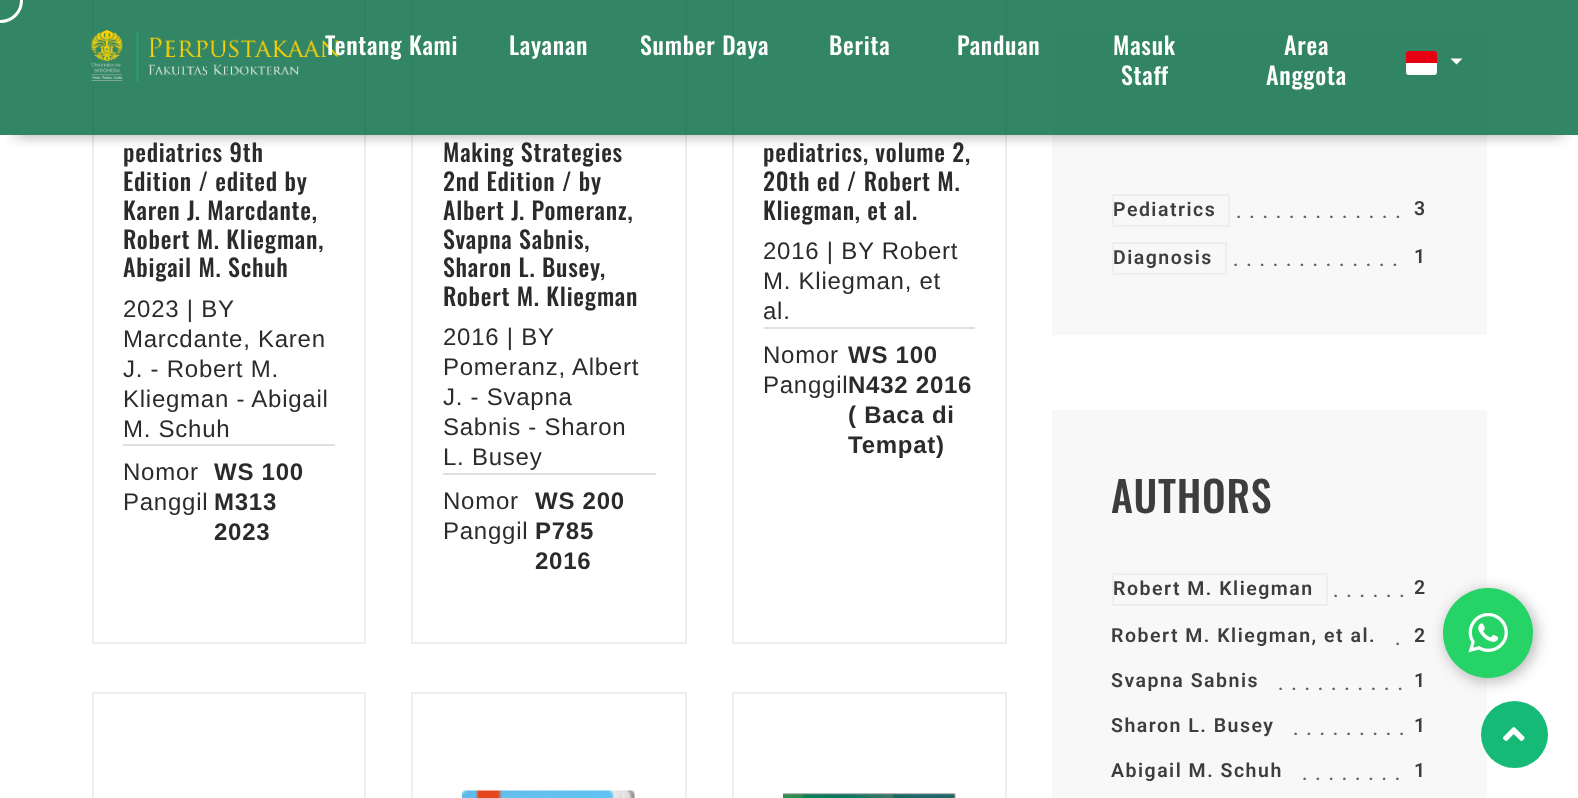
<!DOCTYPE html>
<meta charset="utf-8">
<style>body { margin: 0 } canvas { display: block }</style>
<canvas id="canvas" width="1578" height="798"></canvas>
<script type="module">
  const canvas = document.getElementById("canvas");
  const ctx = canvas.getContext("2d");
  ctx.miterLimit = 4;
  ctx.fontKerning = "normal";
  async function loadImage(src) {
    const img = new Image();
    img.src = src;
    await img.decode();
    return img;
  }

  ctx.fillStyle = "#ffffff";
  ctx.fillRect(0, 0, 1578, 798);
  ctx.fillStyle = "#f8f8f8";
  ctx.fillRect(1052, 410, 435, 388);
  ctx.fillRect(1052, 32, 435, 303);
  ctx.strokeStyle = "#eeeeee";
  ctx.lineWidth = 2;
  ctx.strokeRect(93, -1, 272, 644);
  ctx.strokeRect(412, -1, 274, 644);
  ctx.strokeRect(733, -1, 273, 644);
  ctx.save();
  ctx.beginPath();
  ctx.rect(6, 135, 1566, 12);
  ctx.clip();
  ctx.fillStyle = "rgba(0, 0, 0, 0.35)";
  ctx.filter = "blur(7.5px)";
  ctx.beginPath();
  ctx.rect(15, 30, 1548, 105);
  ctx.fill();
  ctx.filter = "none";
  ctx.restore();
  ctx.fillStyle = "rgba(0, 104, 63, 0.8)";
  ctx.fillRect(0, 0, 1578, 135);
  ctx.beginPath();
  ctx.arc(0.5, 0.5, 21, 0, Math.PI * 2);
  ctx.strokeStyle = "#ffffff";
  ctx.lineWidth = 3;
  ctx.stroke();
  ctx.drawImage(await loadImage("img1.png"), 91, 30, 248, 53);
  ctx.letterSpacing = "0.75px";
  ctx.font = "500 24px Oswald";
  ctx.fillStyle = "#ffffff";
  ctx.fillText("Tentang Kami", 325, 55);
  ctx.fillText("Layanan", 509, 55);
  ctx.fillText("Sumber Daya", 640, 55);
  ctx.fillText("Berita", 829, 55);
  ctx.fillText("Panduan", 957, 55);
  ctx.fillText("Masuk", 1113, 55);
  ctx.fillText("Staff", 1121, 85);
  ctx.fillText("Area", 1284, 55);
  ctx.fillText("Anggota", 1266, 85);
  ctx.fillStyle = "#e70011";
  ctx.beginPath();
  ctx.roundRect(1406, 51, 31, 13, [3, 3, 0, 0]);
  ctx.fill();
  ctx.fillStyle = "#ffffff";
  ctx.beginPath();
  ctx.roundRect(1406, 63, 31, 12, [0, 0, 3, 3]);
  ctx.fill();
  ctx.beginPath();
  ctx.moveTo(1450.5, 58.5);
  ctx.lineTo(1462.5, 58.5);
  ctx.lineTo(1456.5, 64.5);
  ctx.closePath();
  ctx.fill();
  ctx.fillStyle = "#2b2b2b";
  ctx.fillText("pediatrics 9th", 123, 162);
  ctx.fillText("Edition / edited by", 123, 191);
  ctx.fillText("Karen J. Marcdante,", 123, 220);
  ctx.fillText("Robert M. Kliegman,", 123, 249);
  ctx.fillText("Abigail M. Schuh", 123, 277);
  ctx.font = "24px Liberation Sans";
  ctx.fillText("2023 | BY", 123, 317);
  ctx.fillText("Marcdante, Karen", 123, 347);
  ctx.fillText("J. - Robert M.", 123, 377);
  ctx.fillText("Kliegman - Abigail", 123, 407);
  ctx.fillText("M. Schuh", 123, 437);
  ctx.fillStyle = "#dfdfdf";
  ctx.fillRect(123, 444, 212, 2);
  ctx.fillStyle = "#2b2b2b";
  ctx.fillText("Nomor", 123, 480);
  ctx.fillText("Panggil", 123, 510);
  ctx.font = "bold 24px Liberation Sans";
  ctx.fillText("WS 100", 214, 480);
  ctx.fillText("M313", 214, 510);
  ctx.fillText("2023", 214, 540);
  ctx.font = "500 24px Oswald";
  ctx.fillText("Making Strategies", 443, 162);
  ctx.fillText("2nd Edition / by", 443, 191);
  ctx.fillText("Albert J. Pomeranz,", 443, 220);
  ctx.fillText("Svapna Sabnis,", 443, 249);
  ctx.fillText("Sharon L. Busey,", 443, 277);
  ctx.fillText("Robert M. Kliegman", 443, 306);
  ctx.font = "24px Liberation Sans";
  ctx.fillText("2016 | BY", 443, 345);
  ctx.fillText("Pomeranz, Albert", 443, 375);
  ctx.fillText("J. - Svapna", 443, 405);
  ctx.fillText("Sabnis - Sharon", 443, 435);
  ctx.fillText("L. Busey", 443, 465);
  ctx.fillStyle = "#dfdfdf";
  ctx.fillRect(443, 473, 213, 2);
  ctx.fillStyle = "#2b2b2b";
  ctx.fillText("Nomor", 443, 509);
  ctx.fillText("Panggil", 443, 539);
  ctx.font = "bold 24px Liberation Sans";
  ctx.fillText("WS 200", 535, 509);
  ctx.fillText("P785", 535, 539);
  ctx.fillText("2016", 535, 569);
  ctx.font = "500 24px Oswald";
  ctx.fillText("pediatrics, volume 2,", 763, 162);
  ctx.fillText("20th ed / Robert M.", 763, 191);
  ctx.fillText("Kliegman, et al.", 763, 220);
  ctx.font = "24px Liberation Sans";
  ctx.fillText("2016 | BY Robert", 763, 259);
  ctx.fillText("M. Kliegman, et", 763, 289);
  ctx.fillText("al.", 763, 319);
  ctx.fillStyle = "#dfdfdf";
  ctx.fillRect(764, 327, 211, 2);
  ctx.fillStyle = "#2b2b2b";
  ctx.fillText("Nomor", 763, 363);
  ctx.fillText("Panggil", 763, 393);
  ctx.font = "bold 24px Liberation Sans";
  ctx.fillText("WS 100", 848, 363);
  ctx.fillText("N432 2016", 848, 393);
  ctx.fillText("( Baca di", 848, 423);
  ctx.fillText("Tempat)", 848, 453);
  ctx.strokeStyle = "#eeeeee";
  ctx.lineWidth = 2;
  ctx.strokeRect(93, 693, 272, 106);
  ctx.strokeRect(412, 693, 274, 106);
  ctx.drawImage(await loadImage("img2.png"), 462, 790, 173, 8);
  ctx.strokeRect(733, 693, 273, 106);
  ctx.drawImage(await loadImage("img3.png"), 783, 793, 173, 5);
  ctx.strokeRect(1113, 195, 116, 31);
  ctx.letterSpacing = "1.5px";
  ctx.font = "600 19.5px Roboto";
  ctx.fillStyle = "#3d3d3d";
  ctx.fillText("Pediatrics", 1113, 216);
  ctx.font = "500 19.5px Roboto";
  ctx.fillStyle = "#646464";
  ctx.fillText(". . . . . . . . . . . . .", 1236, 218);
  ctx.font = "600 19.5px Roboto";
  ctx.fillStyle = "#3d3d3d";
  ctx.fillText("3", 1414, 215);
  ctx.strokeRect(1113, 243, 113, 31);
  ctx.fillText("Diagnosis", 1113, 264);
  ctx.fillText("1", 1414, 263);
  ctx.font = "500 19.5px Roboto";
  ctx.fillStyle = "#646464";
  ctx.fillText(". . . . . . . . . . . . .", 1233, 266);
  ctx.letterSpacing = "0.75px";
  ctx.font = "500 42px Oswald";
  ctx.fillStyle = "#3d3d3d";
  ctx.fillText("AUTHORS", 1111, 513);
  ctx.strokeRect(1113, 574, 214, 31);
  ctx.letterSpacing = "1.5px";
  ctx.font = "600 19.5px Roboto";
  ctx.fillText("Robert M. Kliegman", 1113, 595);
  ctx.font = "500 19.5px Roboto";
  ctx.fillStyle = "#646464";
  ctx.fillText(". . . . . .", 1333, 597);
  ctx.font = "600 19.5px Roboto";
  ctx.fillStyle = "#3d3d3d";
  ctx.fillText("2", 1414, 594);
  ctx.fillText("Robert M. Kliegman, et al.", 1111, 642);
  ctx.fillText("2", 1414, 642);
  ctx.font = "500 19.5px Roboto";
  ctx.fillStyle = "#646464";
  ctx.fillText(".", 1395, 645);
  ctx.font = "600 19.5px Roboto";
  ctx.fillStyle = "#3d3d3d";
  ctx.fillText("Svapna Sabnis", 1111, 687);
  ctx.fillText("1", 1414, 687);
  ctx.font = "500 19.5px Roboto";
  ctx.fillStyle = "#646464";
  ctx.fillText(". . . . . . . . . .", 1278, 690);
  ctx.font = "600 19.5px Roboto";
  ctx.fillStyle = "#3d3d3d";
  ctx.fillText("Sharon L. Busey", 1111, 732);
  ctx.fillText("1", 1414, 732);
  ctx.font = "500 19.5px Roboto";
  ctx.fillStyle = "#646464";
  ctx.fillText(". . . . . . . . .", 1293, 735);
  ctx.font = "600 19.5px Roboto";
  ctx.fillStyle = "#3d3d3d";
  ctx.fillText("Abigail M. Schuh", 1111, 777);
  ctx.fillText("1", 1414, 777);
  ctx.font = "500 19.5px Roboto";
  ctx.fillStyle = "#646464";
  ctx.fillText(". . . . . . . .", 1302, 780);
  ctx.fillStyle = "rgba(18, 185, 117, 0.99)";
  ctx.beginPath();
  ctx.arc(1514.5, 734.5, 33.5, 0, Math.PI * 2);
  ctx.fill();
  ctx.fillStyle = "rgba(0, 0, 0, 0.3)";
  ctx.filter = "blur(7.5px)";
  ctx.beginPath();
  ctx.roundRect(1446, 591, 90, 90, 45);
  ctx.fill();
  ctx.filter = "none";
  ctx.fillStyle = "#25d366";
  ctx.beginPath();
  ctx.arc(1488, 633, 45, 0, Math.PI * 2);
  ctx.fill();
  ctx.drawImage(await loadImage("img4.png"), 1468, 612, 40, 41);
  ctx.drawImage(await loadImage("img5.png"), 1503, 727, 22, 14);
</script>
